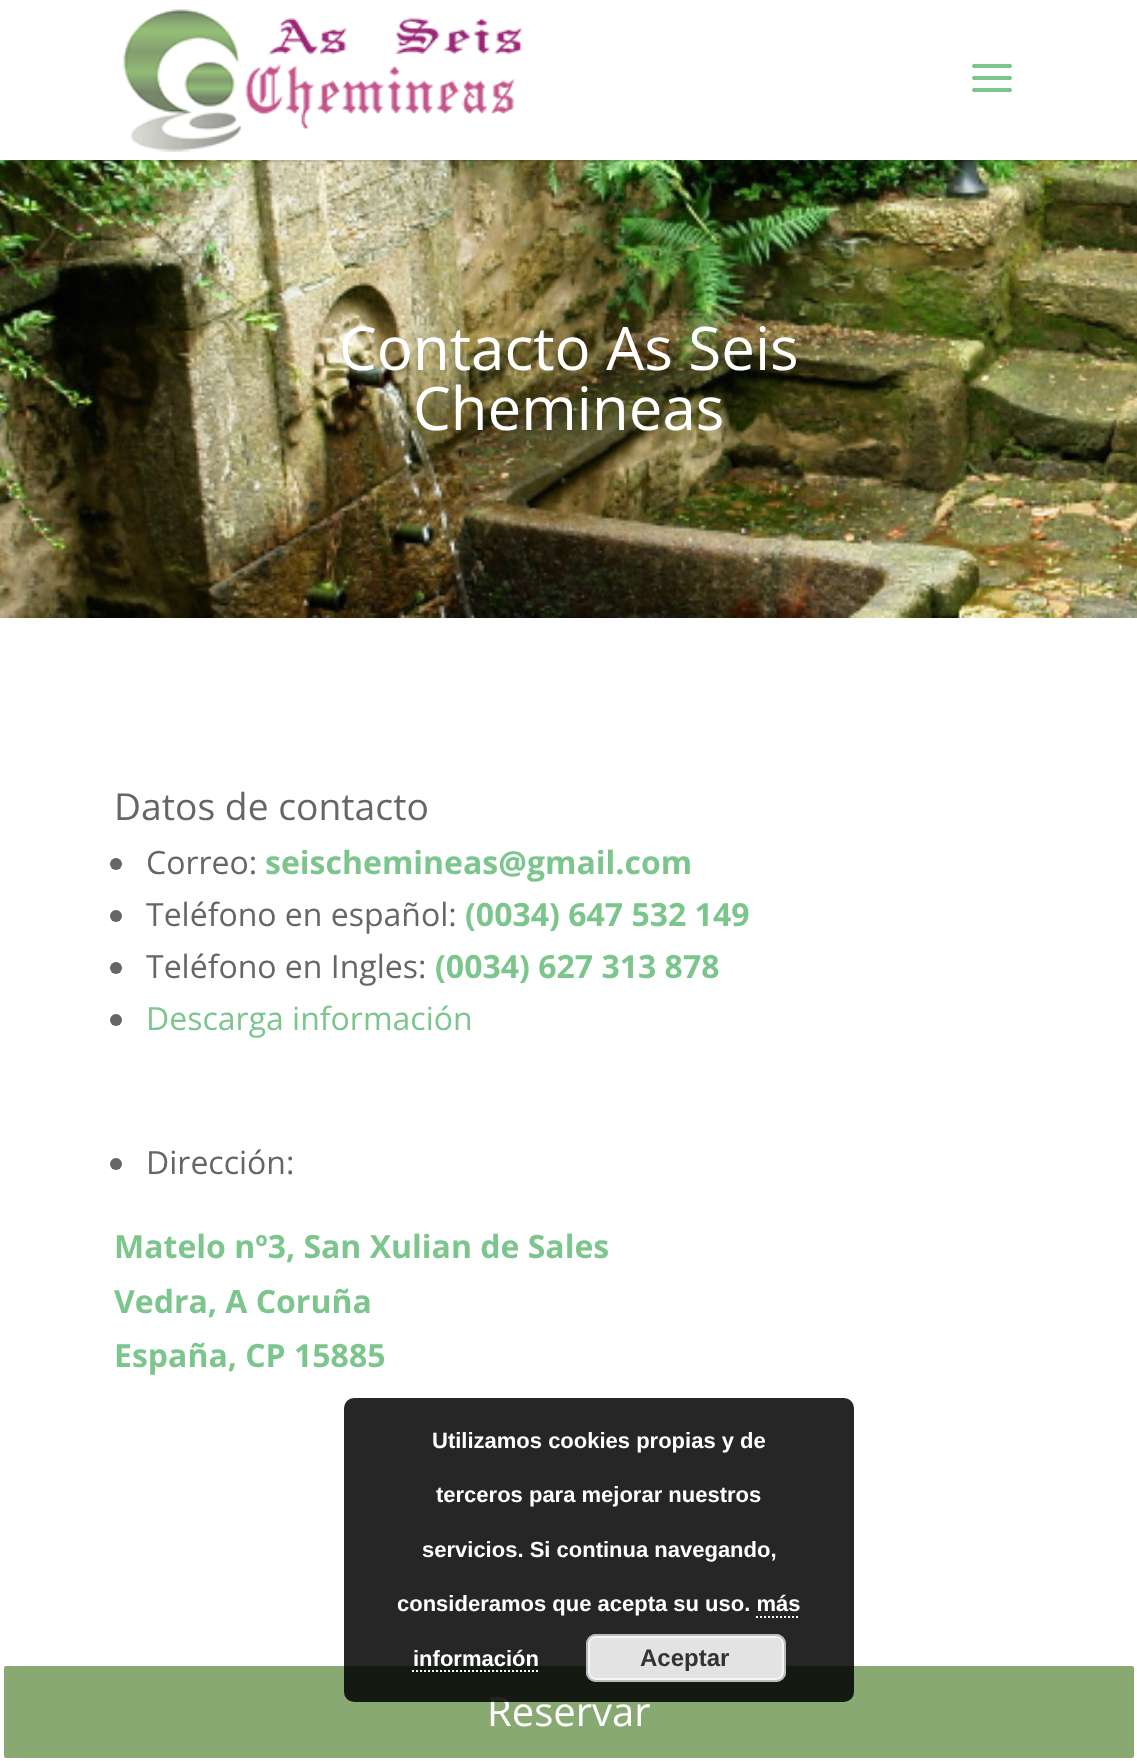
<!DOCTYPE html>
<meta charset="utf-8">
<style>body { margin: 0 } canvas { display: block }</style>
<canvas id="canvas" width="1137" height="1761"></canvas>
<script type="module">
  const canvas = document.getElementById("canvas");
  const ctx = canvas.getContext("2d");
  ctx.miterLimit = 4;
  ctx.fontKerning = "normal";
  async function loadImage(src) {
    const img = new Image();
    img.src = src;
    await img.decode();
    return img;
  }

  ctx.fillStyle = "#ffffff";
  ctx.fillRect(0, 0, 1137, 1761);
  ctx.drawImage(await loadImage("img3.png"), 0, 160, 1137, 458);
  ctx.fillStyle = "rgba(0, 0, 0, 0.1)";
  ctx.fillRect(0, 160, 1137, 2);
  ctx.drawImage(await loadImage("img1.png"), 123, 9, 399, 143);
  ctx.drawImage(await loadImage("img2.png"), 972, 64, 40, 28);
  ctx.font = "60px Open Sans";
  ctx.fillStyle = "#ffffff";
  ctx.fillText("Contacto As Seis", 339, 370);
  ctx.fillText("Chemineas", 413, 430);
  ctx.font = "37.25px Open Sans";
  ctx.fillStyle = "#666666";
  ctx.fillText("Datos de contacto", 114, 820);
  ctx.beginPath();
  ctx.arc(116, 864, 6, 0, Math.PI * 2);
  ctx.fill();
  ctx.font = "32px Open Sans";
  ctx.fillText("Correo:", 146, 874);
  ctx.font = "bold 32px Open Sans";
  ctx.fillStyle = "#7cc68d";
  ctx.fillText("seischemineas@gmail.com", 265, 874);
  ctx.fillStyle = "#666666";
  ctx.beginPath();
  ctx.arc(116, 916, 6, 0, Math.PI * 2);
  ctx.fill();
  ctx.font = "32px Open Sans";
  ctx.fillText("Teléfono en español:", 146, 926);
  ctx.font = "bold 32px Open Sans";
  ctx.fillStyle = "#7cc68d";
  ctx.fillText("(0034) 647 532 149", 465, 926);
  ctx.fillStyle = "#666666";
  ctx.beginPath();
  ctx.arc(116, 968, 6, 0, Math.PI * 2);
  ctx.fill();
  ctx.font = "32px Open Sans";
  ctx.fillText("Teléfono en Ingles:", 146, 978);
  ctx.font = "bold 32px Open Sans";
  ctx.fillStyle = "#7cc68d";
  ctx.fillText("(0034) 627 313 878", 435, 978);
  ctx.fillStyle = "#666666";
  ctx.beginPath();
  ctx.arc(116, 1020, 6, 0, Math.PI * 2);
  ctx.fill();
  ctx.font = "32px Open Sans";
  ctx.fillStyle = "#7cc68d";
  ctx.fillText("Descarga información", 146, 1030);
  ctx.fillStyle = "#666666";
  ctx.beginPath();
  ctx.arc(116, 1164, 6, 0, Math.PI * 2);
  ctx.fill();
  ctx.fillText("Dirección:", 146, 1174);
  ctx.font = "bold 32px Open Sans";
  ctx.fillStyle = "#7cc68d";
  ctx.fillText("Matelo nº3, San Xulian de Sales", 114, 1258);
  ctx.fillText("Vedra, A Coruña", 114, 1313);
  ctx.fillText("España, CP 15885", 114, 1367);
  ctx.fillStyle = "#89a973";
  ctx.beginPath();
  ctx.roundRect(2, 1664, 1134, 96, 4);
  ctx.fill();
  ctx.strokeStyle = "#ffffff";
  ctx.lineWidth = 4;
  ctx.stroke();
  ctx.font = "40px Open Sans";
  ctx.fillStyle = "#ffffff";
  ctx.fillText("Reservar", 487, 1726);
  ctx.fillStyle = "rgba(0, 0, 0, 0.85)";
  ctx.beginPath();
  ctx.roundRect(344, 1398, 510, 304, 10);
  ctx.fill();
  ctx.font = "bold 22px Liberation Sans";
  ctx.fillStyle = "#ffffff";
  ctx.fillText("Utilizamos cookies propias y de", 432, 1448);
  ctx.fillText("terceros para mejorar nuestros", 436, 1502);
  ctx.fillText("servicios. Si continua navegando,", 422, 1557);
  ctx.fillText("consideramos que acepta su uso. más", 397, 1611);
  ctx.fillText("información", 413, 1666);
  ctx.beginPath();
  ctx.moveTo(756, 1617);
  ctx.lineTo(800, 1617);
  ctx.lineWidth = 2;
  ctx.setLineDash([2, 2]);
  ctx.stroke();
  ctx.beginPath();
  ctx.moveTo(412, 1671);
  ctx.lineTo(538, 1671);
  ctx.stroke();
  ctx.fillStyle = "#e3e3e3";
  ctx.beginPath();
  ctx.roundRect(586, 1634, 200, 48, 10);
  ctx.fill();
  ctx.beginPath();
  ctx.roundRect(589, 1637, 194, 42, 7);
  ctx.strokeStyle = "#f6f6f6";
  ctx.setLineDash([]);
  ctx.stroke();
  ctx.beginPath();
  ctx.roundRect(587, 1635, 198, 46, 9);
  ctx.strokeStyle = "#bbbbbb";
  ctx.stroke();
  ctx.font = "bold 24px Liberation Sans";
  ctx.fillStyle = "#333333";
  ctx.fillText("Aceptar", 640, 1666);
</script>
